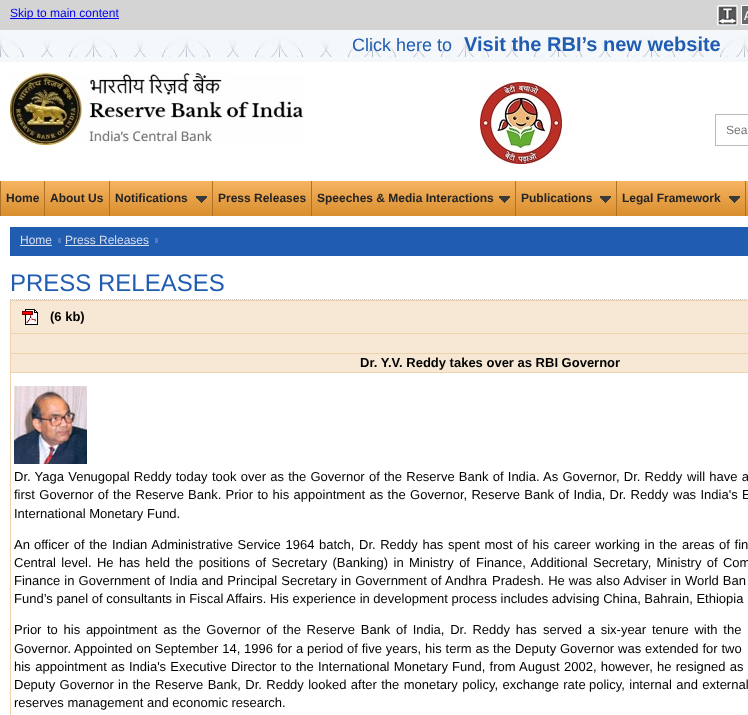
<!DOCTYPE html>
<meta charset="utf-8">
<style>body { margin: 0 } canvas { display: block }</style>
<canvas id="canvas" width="748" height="715"></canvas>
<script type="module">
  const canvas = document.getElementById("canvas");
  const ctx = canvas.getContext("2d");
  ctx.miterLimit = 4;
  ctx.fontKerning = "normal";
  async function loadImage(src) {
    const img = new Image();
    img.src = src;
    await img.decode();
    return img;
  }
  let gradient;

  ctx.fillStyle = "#ffffff";
  ctx.fillRect(0, 0, 748, 715);
  ctx.fillStyle = "#d4d4d4";
  ctx.fillRect(0, 0, 748, 30);
  ctx.fillStyle = "#0000ee";
  ctx.fillRect(10, 18, 109, 1);
  ctx.font = "12px Liberation Sans";
  ctx.fillText("Skip to main content", 10, 17);
  ctx.drawImage(await loadImage("img1.png"), 717, 5, 21, 21);
  ctx.drawImage(await loadImage("img2.png"), 741, 5, 7, 20);
  ctx.drawImage(await loadImage("img3.png"), 0, 30, 748, 32);
  ctx.font = "18px Liberation Sans";
  ctx.fillStyle = "#205db1";
  ctx.fillText("Click here to", 352, 51);
  ctx.font = "bold 20px Liberation Sans";
  ctx.fillText("Visit the RBI’s new website", 464, 51);
  ctx.drawImage(await loadImage("img4.png"), 10, 72, 295, 73);
  ctx.drawImage(await loadImage("img5.png"), 480, 82, 82, 82);
  ctx.strokeStyle = "#bbbbbb";
  ctx.strokeRect(715.5, 114.5, 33, 31);
  ctx.font = "12px Liberation Sans";
  ctx.fillStyle = "#757575";
  ctx.fillText("Sea", 726, 134);
  gradient = ctx.createLinearGradient(540, 181, 540, 216);
  gradient.addColorStop(0, "#f6b361");
  gradient.addColorStop(1, "#d88e2d");
  ctx.fillStyle = gradient;
  ctx.fillRect(1, 181, 747, 35);
  ctx.fillStyle = "#ae7226";
  ctx.fillRect(0, 181, 1, 35);
  ctx.font = "bold 12px Liberation Sans";
  ctx.fillStyle = "#242424";
  ctx.fillText("Home", 6, 202);
  ctx.fillStyle = "#ae7226";
  ctx.fillRect(44, 181, 1, 35);
  ctx.fillStyle = "#242424";
  ctx.fillText("About Us", 50, 202);
  ctx.fillStyle = "#ae7226";
  ctx.fillRect(109, 181, 1, 35);
  ctx.fillStyle = "#242424";
  ctx.fillText("Notifications", 115, 202);
  ctx.drawImage(await loadImage("img6.png"), 196, 196, 11, 7);
  ctx.fillStyle = "#ae7226";
  ctx.fillRect(212, 181, 1, 35);
  ctx.fillStyle = "#242424";
  ctx.fillText("Press Releases", 218, 202);
  ctx.fillStyle = "#ae7226";
  ctx.fillRect(311, 181, 1, 35);
  ctx.fillStyle = "#242424";
  ctx.fillText("Speeches & Media Interactions", 317, 202);
  ctx.drawImage(await loadImage("img6.png"), 499, 196, 11, 7);
  ctx.fillStyle = "#ae7226";
  ctx.fillRect(515, 181, 1, 35);
  ctx.fillStyle = "#242424";
  ctx.fillText("Publications", 521, 202);
  ctx.drawImage(await loadImage("img6.png"), 600, 196, 11, 7);
  ctx.fillStyle = "#ae7226";
  ctx.fillRect(616, 181, 1, 35);
  ctx.fillStyle = "#242424";
  ctx.fillText("Legal Framework", 622, 202);
  ctx.drawImage(await loadImage("img6.png"), 729, 196, 11, 7);
  ctx.fillStyle = "#ae7226";
  ctx.fillRect(745, 181, 1, 35);
  ctx.fillStyle = "#205db1";
  ctx.fillRect(10, 227, 738, 29);
  ctx.font = "12px Liberation Sans";
  ctx.fillStyle = "#d7deed";
  ctx.fillText("Home", 20, 244);
  ctx.fillStyle = "#4d7dc1";
  ctx.fillRect(58, 238, 3, 5);
  ctx.fillStyle = "#d7deed";
  ctx.fillRect(20, 245, 32, 1);
  ctx.fillText("Press Releases", 65, 244);
  ctx.fillStyle = "#4d7dc1";
  ctx.fillRect(155, 238, 3, 5);
  ctx.fillStyle = "#d7deed";
  ctx.fillRect(65, 245, 84, 1);
  ctx.beginPath();
  ctx.moveTo(10, 299.5);
  ctx.lineTo(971, 299.5);
  ctx.strokeStyle = "#c9c9c9";
  ctx.setLineDash([1, 1]);
  ctx.stroke();
  ctx.font = "24px Liberation Sans";
  ctx.fillStyle = "#205db1";
  ctx.fillText("PRESS RELEASES", 10, 291);
  ctx.fillStyle = "#f7e8d5";
  ctx.fillRect(11, 301, 737, 32);
  ctx.fillStyle = "#efd1aa";
  ctx.fillRect(10, 300, 738, 1);
  ctx.fillRect(10, 333, 738, 1);
  ctx.fillRect(10, 353, 738, 1);
  ctx.fillRect(10, 372, 738, 1);
  ctx.fillRect(10, 372, 1, 343);
  ctx.fillRect(10, 353, 1, 20);
  ctx.fillRect(10, 333, 1, 21);
  ctx.fillRect(10, 300, 1, 34);
  ctx.drawImage(await loadImage("img7.png"), 22, 309, 16, 16);
  ctx.font = "bold 13px Liberation Sans";
  ctx.fillStyle = "#000000";
  ctx.fillText("(6 kb)", 50, 321);
  ctx.fillStyle = "#f7e8d5";
  ctx.fillRect(11, 334, 737, 19);
  ctx.fillRect(11, 354, 737, 18);
  ctx.fillStyle = "#000000";
  ctx.fillText("Dr. Y.V. Reddy takes over as RBI Governor", 360, 367);
  ctx.drawImage(await loadImage("img8.png"), 14, 386, 73, 78);
  ctx.wordSpacing = "0.6px";
  ctx.font = "13px Liberation Sans";
  ctx.fillText("Dr. Yaga Venugopal Reddy today", 14, 481);
  ctx.fillText("took over as the Governor of the Reserve Bank of India. As Governor, Dr. Reddy", 212, 481);
  ctx.fillText("will have a", 687, 481);
  ctx.wordSpacing = "0.75px";
  ctx.fillText("first Governor of the Reserve", 14, 499);
  ctx.fillText("Bank. Prior to his appointment as the Governor, Reserve Bank of India, Dr. Reddy", 188, 499);
  ctx.fillText("was India's E", 673, 499);
  ctx.wordSpacing = "0px";
  ctx.fillText("International Monetary Fund.", 14, 518);
  ctx.fillText("An", 14, 549);
  ctx.wordSpacing = "1px";
  ctx.fillText("officer of the Indian Administrative Service 1964 batch, Dr. Reddy has spent most", 34, 549);
  ctx.fillText("of his career working in the areas of fin", 517, 549);
  ctx.wordSpacing = "1.75px";
  ctx.fillText("Central level. He has held the positions of Secretary (Banking) in Ministry of", 14, 567);
  ctx.fillText("Finance, Additional Secretary, Ministry of Com", 476, 567);
  ctx.wordSpacing = "0.5px";
  ctx.fillText("Finance in Government of India and Principal Secretary in Government of Andhra", 14, 585);
  ctx.fillText("Pradesh. He was also Adviser in World Ban", 492, 585);
  ctx.wordSpacing = "0px";
  ctx.fillText("Fund’s panel of consultants in Fiscal Affairs. His experience in development process includes advising China, Bahrain, Ethiopia", 14, 603);
  ctx.fillText("Prior", 14, 634);
  ctx.wordSpacing = "2.1px";
  ctx.fillText("to his appointment as the Governor of the Reserve Bank of India, Dr. Reddy has", 47, 634);
  ctx.fillText("served a six-year tenure with the", 543, 634);
  ctx.wordSpacing = "0px";
  ctx.fillText("Governor.", 14, 653);
  ctx.wordSpacing = "0.25px";
  ctx.fillText("Appointed on September 14, 1996 for a period of five years, his term as the Deputy Governor was extended for two", 74, 653);
  ctx.wordSpacing = "1px";
  ctx.fillText("his appointment", 14, 671);
  ctx.wordSpacing = "0.6px";
  ctx.fillText("as India's Executive Director to the International Monetary Fund, from August", 111, 671);
  ctx.fillText("2002, however, he resigned as", 564, 671);
  ctx.wordSpacing = "0.75px";
  ctx.fillText("Deputy Governor", 14, 689);
  ctx.fillText("in the Reserve Bank, Dr. Reddy looked after the monetary policy, exchange rate", 118, 689);
  ctx.fillText("policy, internal and external", 589, 689);
  ctx.wordSpacing = "0px";
  ctx.fillText("reserves management and economic research.", 14, 707);
</script>
